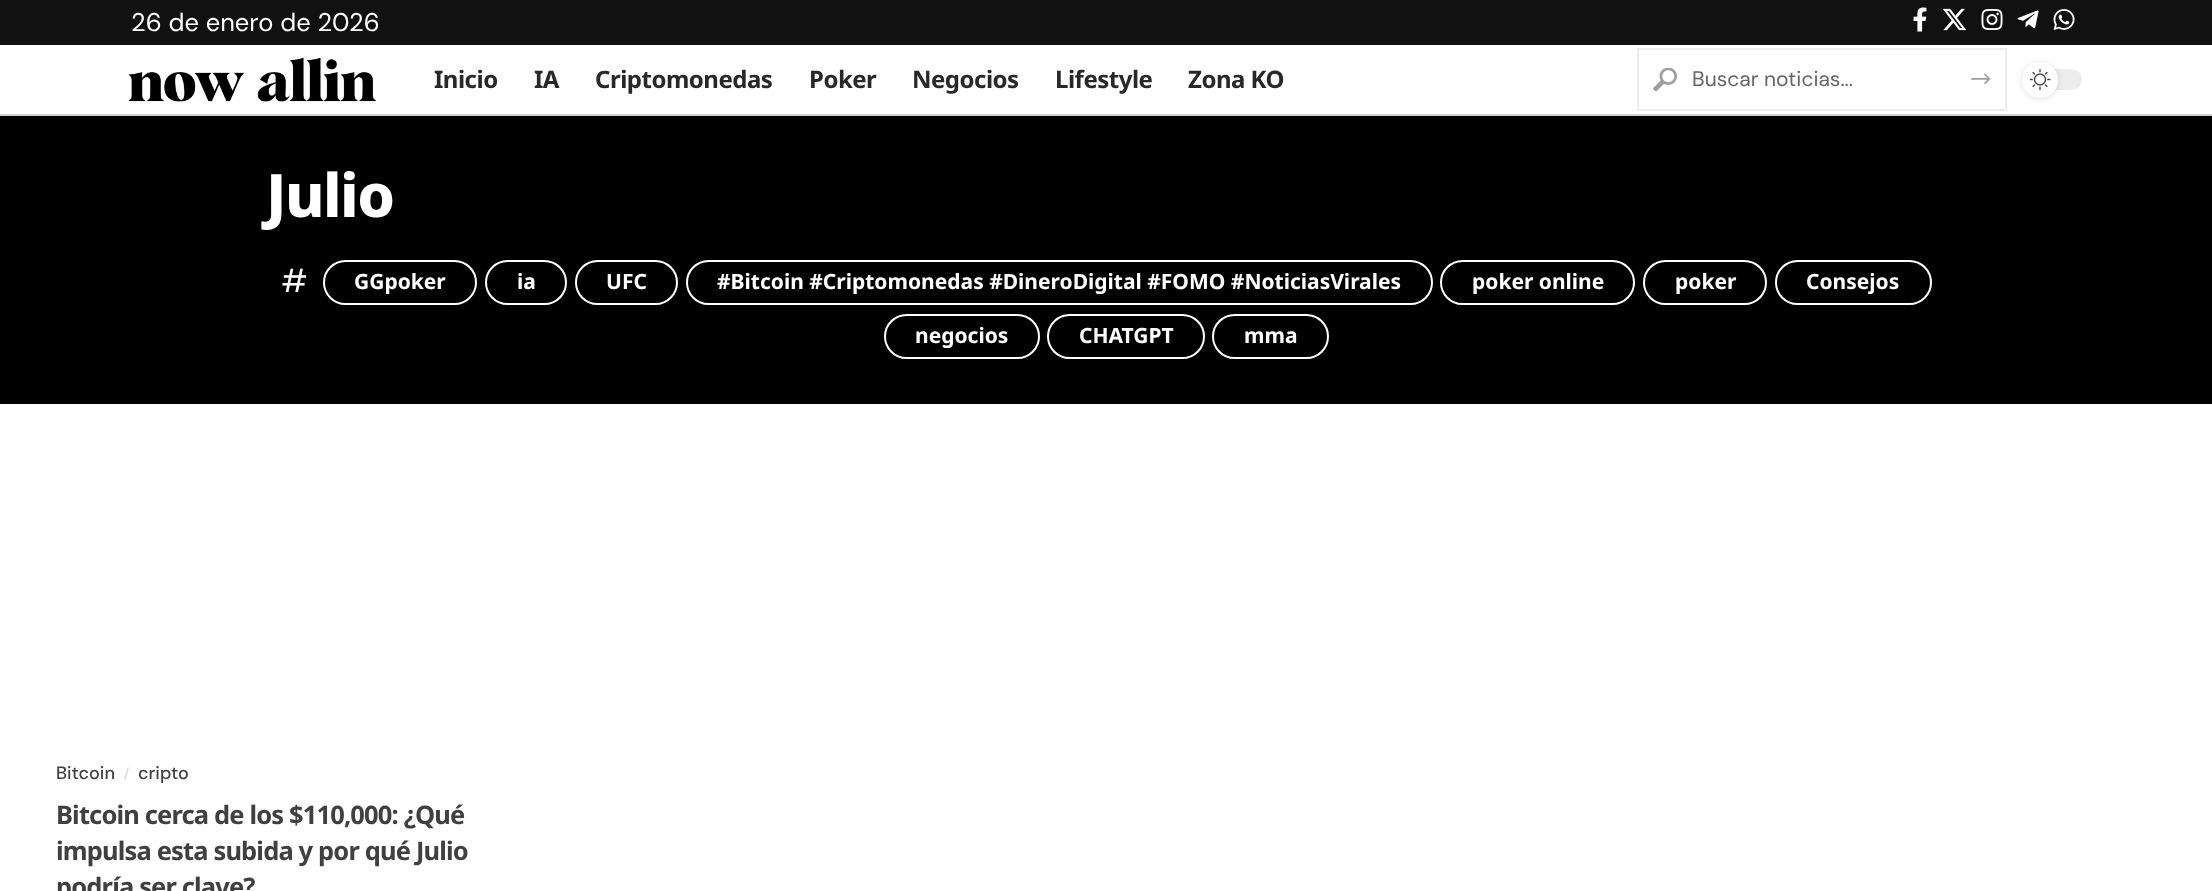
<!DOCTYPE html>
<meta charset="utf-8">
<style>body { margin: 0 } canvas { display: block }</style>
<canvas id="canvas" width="2212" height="891"></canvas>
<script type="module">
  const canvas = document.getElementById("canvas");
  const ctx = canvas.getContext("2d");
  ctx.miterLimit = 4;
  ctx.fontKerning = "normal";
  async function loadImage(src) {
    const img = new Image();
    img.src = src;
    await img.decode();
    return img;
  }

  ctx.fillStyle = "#ffffff";
  ctx.fillRect(0, 0, 2212, 891);
  ctx.fillStyle = "#111111";
  ctx.fillRect(0, 0, 2212, 45);
  ctx.font = "25.5px DM Sans";
  ctx.fillStyle = "#ffffff";
  ctx.fillText("26 de enero de 2026", 131, 31);
  ctx.drawImage(await loadImage("img1.png"), 1913, 7, 14, 25);
  ctx.drawImage(await loadImage("img2.png"), 1942, 8, 25, 23);
  ctx.drawImage(await loadImage("img3.png"), 1981, 9, 22, 21);
  ctx.drawImage(await loadImage("img4.png"), 2017, 10, 22, 19);
  ctx.drawImage(await loadImage("img5.png"), 2053, 9, 22, 21);
  ctx.fillStyle = "#d0d0d0";
  ctx.fillRect(0, 114, 2212, 2);
  ctx.drawImage(await loadImage("img6.png"), 128, 57, 248, 45);
  ctx.letterSpacing = "-0.5px";
  ctx.font = "bold 24px Noto Sans";
  ctx.fillStyle = "#282828";
  ctx.fillText("Inicio", 434, 88);
  ctx.fillText("IA", 534, 88);
  ctx.fillText("Criptomonedas", 595, 88);
  ctx.fillText("Poker", 809, 88);
  ctx.fillText("Negocios", 912, 88);
  ctx.fillText("Lifestyle", 1055, 88);
  ctx.fillText("Zona KO", 1188, 88);
  ctx.strokeStyle = "#ededed";
  ctx.lineWidth = 2;
  ctx.strokeRect(1638, 49, 368, 61);
  ctx.drawImage(await loadImage("img7.png"), 1653, 68, 24, 24);
  ctx.letterSpacing = "0px";
  ctx.font = "21px DM Sans";
  ctx.fillStyle = "#666666";
  ctx.fillText("Buscar noticias...", 1692, 86);
  ctx.drawImage(await loadImage("img8.png"), 1971, 73, 20, 11);
  ctx.fillStyle = "#ededed";
  ctx.beginPath();
  ctx.roundRect(2022, 69, 60, 21, 10.5);
  ctx.fill();
  ctx.fillStyle = "rgba(0, 0, 0, 0.12)";
  ctx.filter = "blur(3px)";
  ctx.beginPath();
  ctx.roundRect(2022, 63, 36, 36, 18);
  ctx.fill();
  ctx.filter = "none";
  ctx.fillStyle = "#ffffff";
  ctx.beginPath();
  ctx.arc(2040, 80, 18, 0, Math.PI * 2);
  ctx.fill();
  ctx.drawImage(await loadImage("img9.png"), 2030, 69, 21, 21);
  ctx.fillStyle = "#000000";
  ctx.fillRect(0, 116, 2212, 288);
  ctx.letterSpacing = "-1.5px";
  ctx.font = "800 60px Noto Sans";
  ctx.fillStyle = "#ffffff";
  ctx.fillText("Julio", 266, 217);
  ctx.letterSpacing = "0px";
  ctx.font = "33px DM Sans";
  ctx.fillText("#", 281, 292);
  ctx.beginPath();
  ctx.roundRect(324, 261, 152, 43, 21.5);
  ctx.strokeStyle = "#ffffff";
  ctx.stroke();
  ctx.font = "bold 21px Noto Sans";
  ctx.fillText("GGpoker", 354, 289);
  ctx.beginPath();
  ctx.roundRect(486, 261, 80, 43, 21.5);
  ctx.stroke();
  ctx.fillText("ia", 517, 289);
  ctx.beginPath();
  ctx.roundRect(576, 261, 101, 43, 21.5);
  ctx.stroke();
  ctx.fillText("UFC", 606, 289);
  ctx.beginPath();
  ctx.roundRect(687, 261, 745, 43, 21.5);
  ctx.stroke();
  ctx.fillText("#Bitcoin #Criptomonedas #DineroDigital #FOMO #NoticiasVirales", 717, 289);
  ctx.beginPath();
  ctx.roundRect(1441, 261, 193, 43, 21.5);
  ctx.stroke();
  ctx.fillText("poker online", 1472, 289);
  ctx.beginPath();
  ctx.roundRect(1644, 261, 122, 43, 21.5);
  ctx.stroke();
  ctx.fillText("poker", 1675, 289);
  ctx.beginPath();
  ctx.roundRect(1776, 261, 155, 43, 21.5);
  ctx.stroke();
  ctx.fillText("Consejos", 1806, 289);
  ctx.beginPath();
  ctx.roundRect(885, 315, 154, 43, 21.5);
  ctx.stroke();
  ctx.fillText("negocios", 915, 343);
  ctx.beginPath();
  ctx.roundRect(1048, 315, 156, 43, 21.5);
  ctx.stroke();
  ctx.fillText("CHATGPT", 1079, 343);
  ctx.beginPath();
  ctx.roundRect(1213, 315, 115, 43, 21.5);
  ctx.stroke();
  ctx.fillText("mma", 1244, 343);
  ctx.font = "500 18px DM Sans";
  ctx.fillStyle = "#404040";
  ctx.fillText("Bitcoin", 56, 779);
  ctx.fillStyle = "#d6d6d6";
  ctx.beginPath();
  ctx.moveTo(127.5, 767.5);
  ctx.lineTo(129, 767.5);
  ctx.lineTo(125.5, 779.5);
  ctx.lineTo(124, 779.5);
  ctx.closePath();
  ctx.fill();
  ctx.fillStyle = "#404040";
  ctx.fillText("cripto", 138, 779);
  ctx.letterSpacing = "-0.85px";
  ctx.font = "bold 25.5px Noto Sans";
  ctx.fillText("Bitcoin cerca de los $110,000: ¿Qué", 56, 824);
  ctx.fillText("impulsa esta subida y por qué Julio", 56, 860);
  ctx.fillText("podría ser clave?", 56, 896);
</script>
